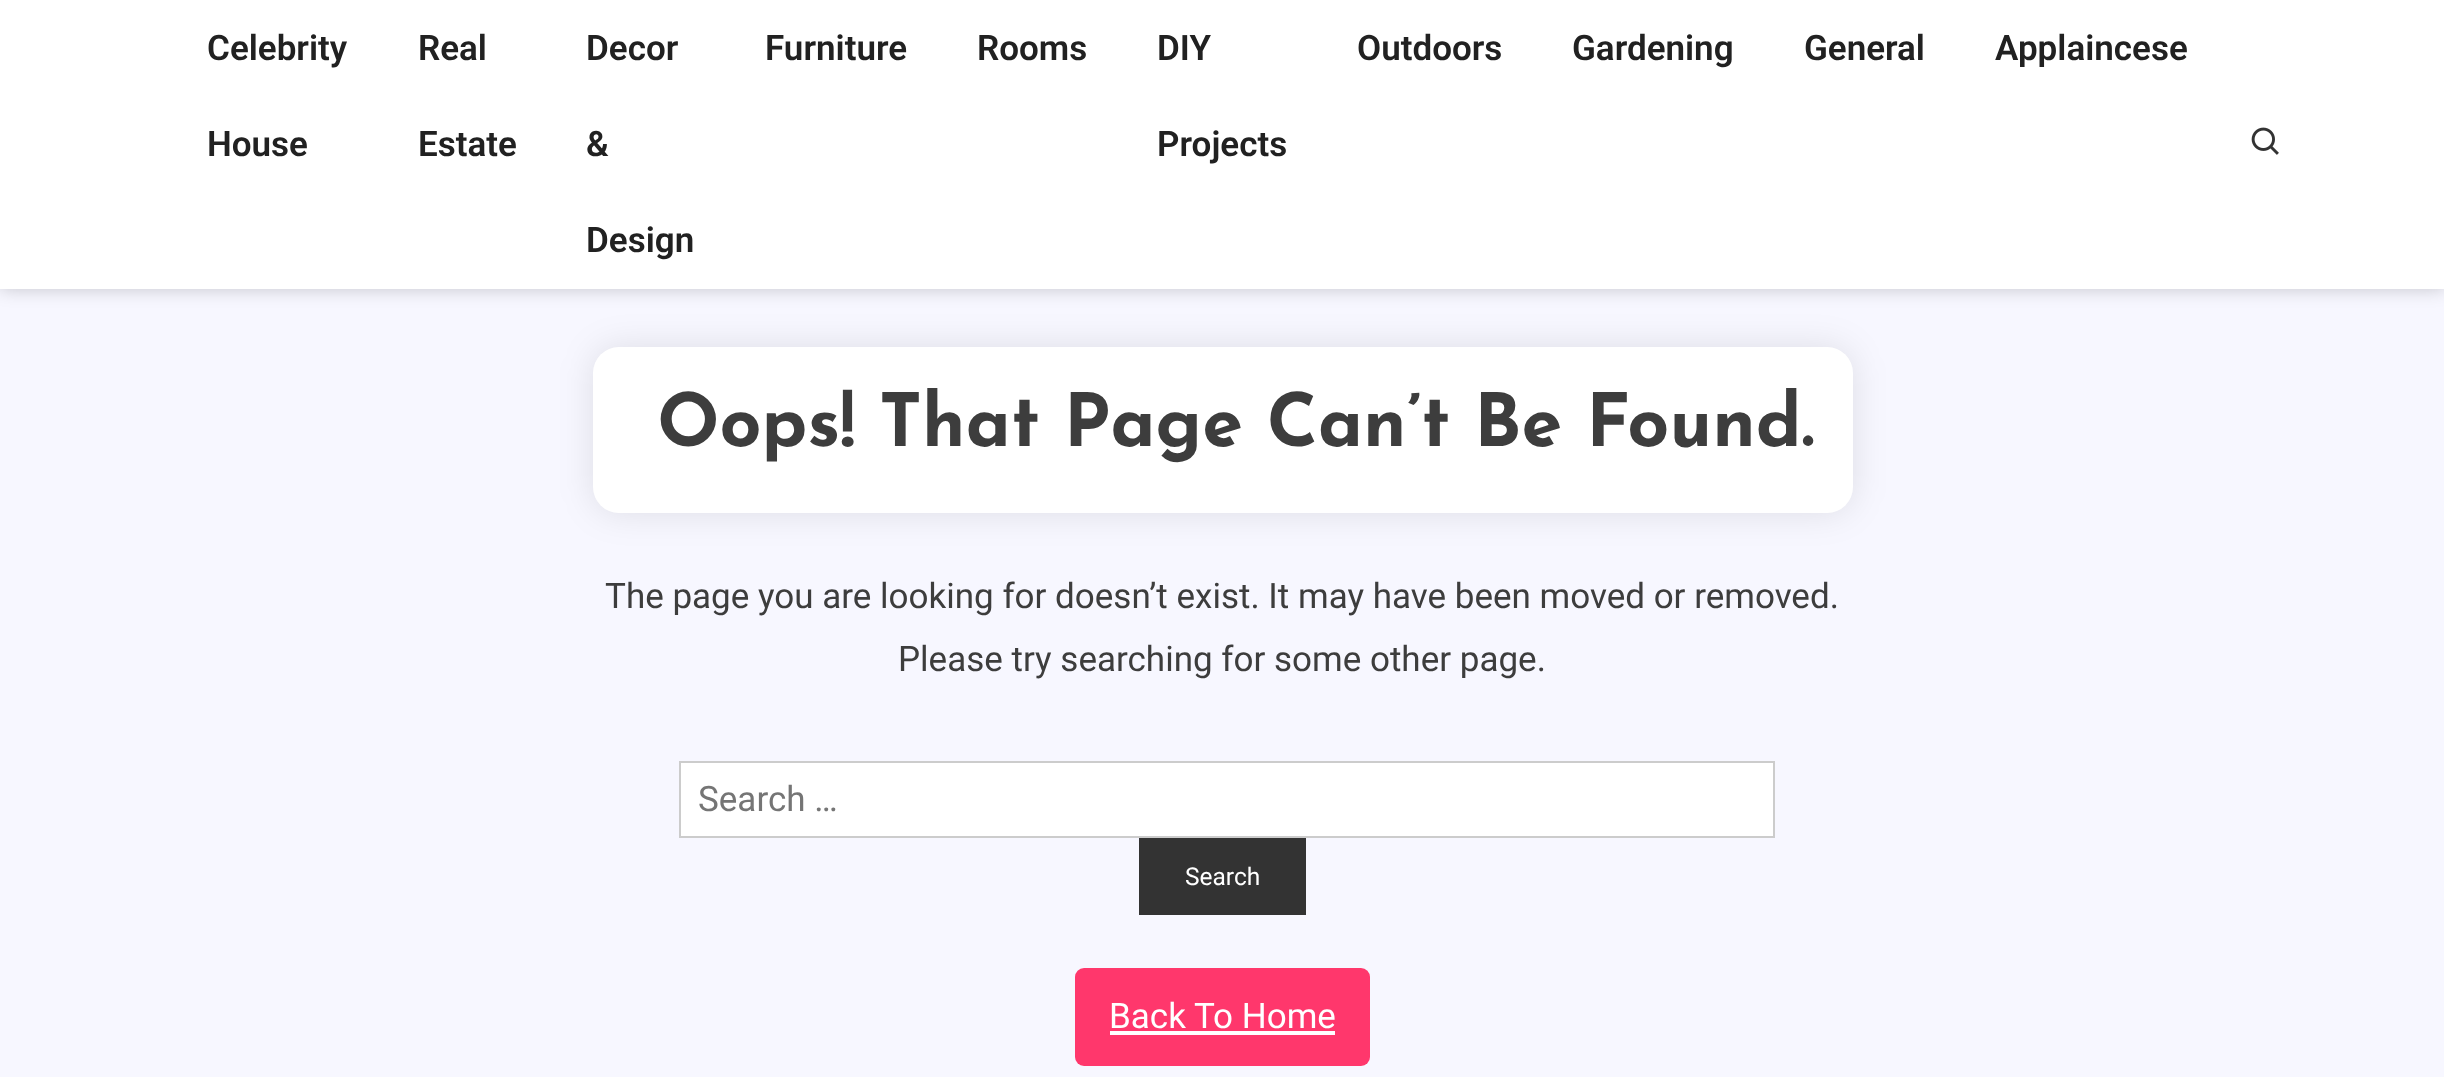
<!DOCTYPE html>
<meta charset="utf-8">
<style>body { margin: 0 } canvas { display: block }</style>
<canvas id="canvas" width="2444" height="1077"></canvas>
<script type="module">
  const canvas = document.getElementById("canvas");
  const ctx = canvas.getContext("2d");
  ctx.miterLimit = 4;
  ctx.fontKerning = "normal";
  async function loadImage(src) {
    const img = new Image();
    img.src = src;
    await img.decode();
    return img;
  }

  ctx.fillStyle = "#f7f7ff";
  ctx.fillRect(0, 0, 2444, 1077);
  ctx.fillStyle = "rgba(0, 0, 0, 0.2)";
  ctx.filter = "blur(9px)";
  ctx.beginPath();
  ctx.rect(0, 0, 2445, 289);
  ctx.fill();
  ctx.filter = "none";
  ctx.fillStyle = "#ffffff";
  ctx.fillRect(0, 0, 2444, 289);
  ctx.font = "600 35px Roboto";
  ctx.fillStyle = "#212121";
  ctx.fillText("Celebrity", 207, 60);
  ctx.fillText("House", 207, 156);
  ctx.fillText("Real", 418, 60);
  ctx.fillText("Estate", 418, 156);
  ctx.fillText("Decor", 586, 60);
  ctx.fillText("&", 586, 156);
  ctx.fillText("Design", 586, 252);
  ctx.fillText("Furniture", 765, 60);
  ctx.fillText("Rooms", 977, 60);
  ctx.fillText("DIY", 1157, 60);
  ctx.fillText("Projects", 1157, 156);
  ctx.fillText("Outdoors", 1357, 60);
  ctx.fillText("Gardening", 1572, 60);
  ctx.fillText("General", 1804, 60);
  ctx.fillText("Applaincese", 1995, 60);
  ctx.drawImage(await loadImage("img1.png"), 2251, 127, 28, 28);
  ctx.fillStyle = "rgba(0, 0, 0, 0.1)";
  ctx.filter = "blur(17.5px)";
  ctx.beginPath();
  ctx.roundRect(593, 347, 1260, 166, 26);
  ctx.fill();
  ctx.filter = "none";
  ctx.fillStyle = "#ffffff";
  ctx.beginPath();
  ctx.roundRect(593, 347, 1260, 166, 26);
  ctx.fill();
  ctx.font = "bold 73.5px Josefin Sans";
  ctx.fillStyle = "#3d3d3d";
  ctx.fillText("Oops! That Page Can’t Be Found.", 657, 446);
  ctx.font = "35px Roboto";
  ctx.fillText("The page you are looking for doesn’t exist. It may have been moved or removed.", 605, 608);
  ctx.fillText("Please try searching for some other page.", 898, 671);
  ctx.fillStyle = "#ffffff";
  ctx.beginPath();
  ctx.rect(680, 762, 1094, 75);
  ctx.fill();
  ctx.strokeStyle = "#cccccc";
  ctx.lineWidth = 2;
  ctx.stroke();
  ctx.fillStyle = "#757575";
  ctx.fillText("Search …", 698, 811);
  ctx.fillStyle = "#333333";
  ctx.fillRect(1139, 838, 167, 77);
  ctx.font = "24.5px Roboto";
  ctx.fillStyle = "#ffffff";
  ctx.fillText("Search", 1185, 885);
  ctx.fillStyle = "#ff376c";
  ctx.beginPath();
  ctx.roundRect(1075, 968, 295, 98, 9);
  ctx.fill();
  ctx.font = "35px Roboto";
  ctx.fillStyle = "#ffffff";
  ctx.fillText("Back To Home", 1109, 1028);
  ctx.fillRect(1110, 1031, 225, 4);
</script>
